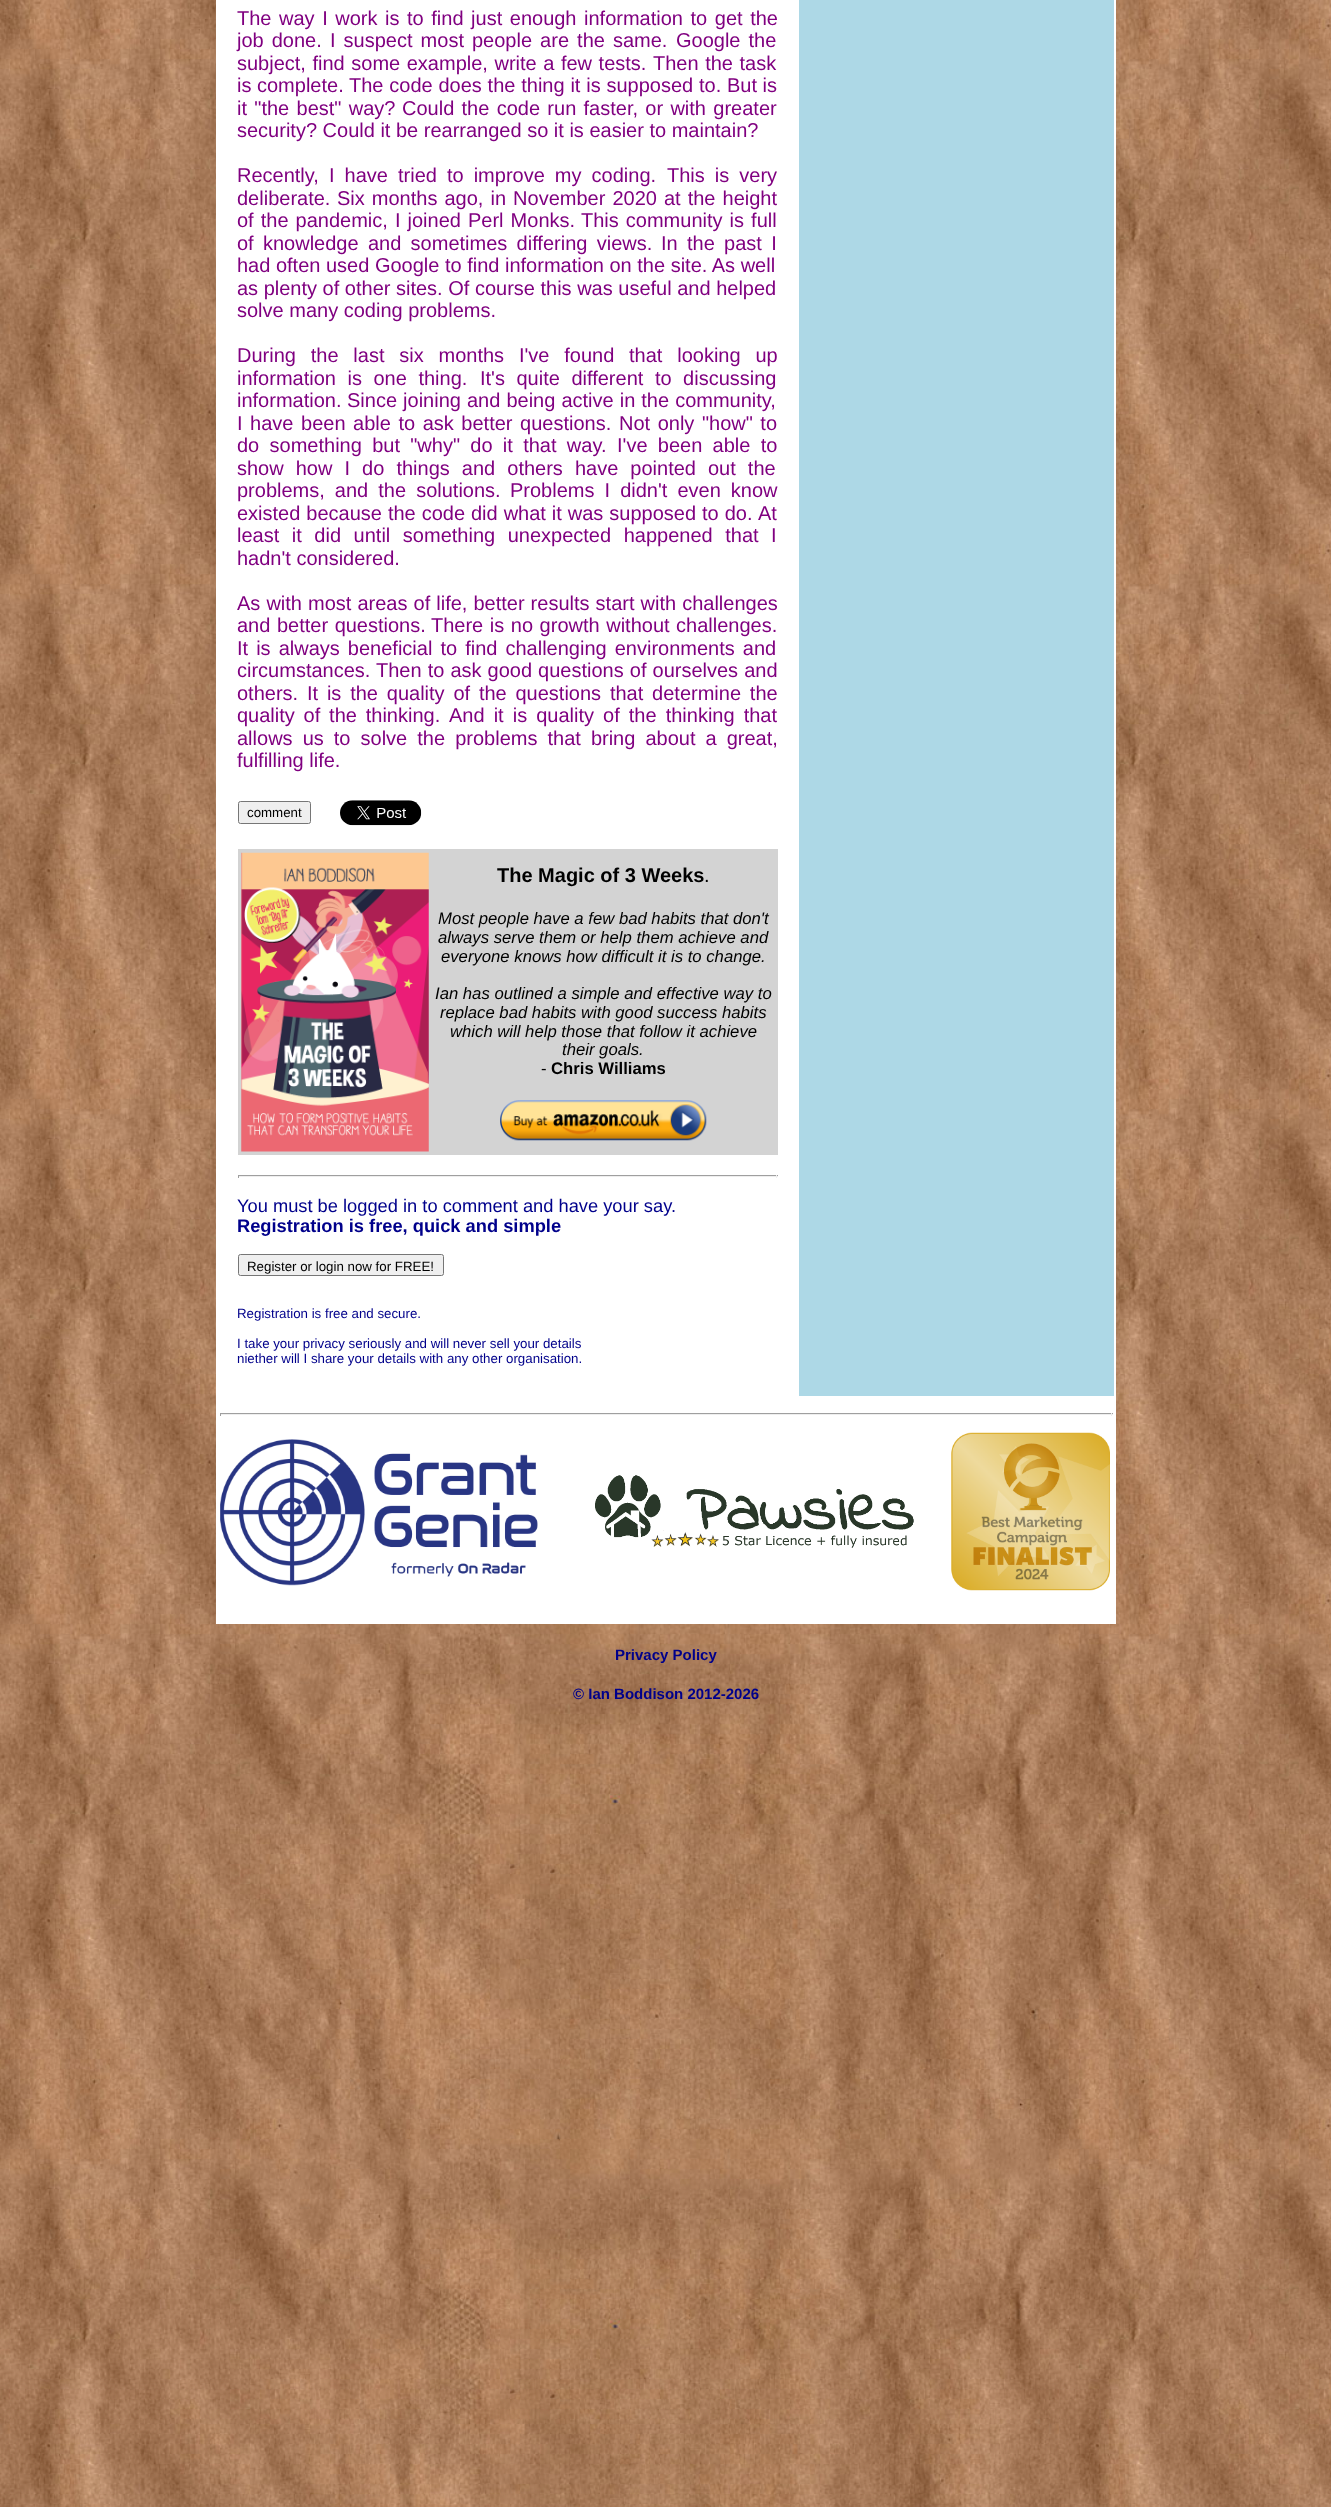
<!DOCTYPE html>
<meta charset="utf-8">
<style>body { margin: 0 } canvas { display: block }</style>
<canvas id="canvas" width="1331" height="2507"></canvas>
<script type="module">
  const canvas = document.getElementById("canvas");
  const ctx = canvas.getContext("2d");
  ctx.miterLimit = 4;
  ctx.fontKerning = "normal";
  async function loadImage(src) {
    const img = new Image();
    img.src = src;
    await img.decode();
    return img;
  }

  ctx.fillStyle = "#ffffff";
  ctx.fillRect(0, 0, 1331, 2507);
  ctx.drawImage(await loadImage("img1.png"), 0, 0, 1331, 2507);
  ctx.fillRect(216, 0, 900, 1624);
  ctx.wordSpacing = "2px";
  ctx.font = "20px Liberation Sans";
  ctx.fillStyle = "#800080";
  ctx.fillText("The way I work is to find just enough information to get the", 237, 25);
  ctx.wordSpacing = "2.5px";
  ctx.fillText("job done.", 237, 47);
  ctx.fillText("I suspect most people are the same.", 330, 47);
  ctx.fillText("Google the", 676, 47);
  ctx.wordSpacing = "1px";
  ctx.fillText("subject, find some example, write a few tests.", 237, 70);
  ctx.fillText("Then the task", 653, 70);
  ctx.wordSpacing = "0px";
  ctx.fillText("is complete.", 237, 92);
  ctx.wordSpacing = "0.25px";
  ctx.fillText("The code does the thing it is supposed to.", 349, 92);
  ctx.wordSpacing = "0px";
  ctx.fillText("But is", 727, 92);
  ctx.wordSpacing = "1.75px";
  ctx.fillText("it \"the best\" way?", 237, 115);
  ctx.fillText("Could the code run faster, or with greater", 402, 115);
  ctx.wordSpacing = "0px";
  ctx.fillText("security? Could it be rearranged so it is easier to maintain?", 237, 137);
  ctx.wordSpacing = "4.5px";
  ctx.fillText("Recently, I have tried to improve my coding.", 237, 182);
  ctx.fillText("This is very", 667, 182);
  ctx.wordSpacing = "0px";
  ctx.fillText("deliberate.", 237, 205);
  ctx.wordSpacing = "1.5px";
  ctx.fillText("Six months ago, in November 2020 at the height", 337, 205);
  ctx.fillText("of the pandemic, I joined Perl Monks.", 237, 227);
  ctx.fillText("This community is full", 581, 227);
  ctx.wordSpacing = "3.75px";
  ctx.fillText("of knowledge and sometimes differing views.", 237, 250);
  ctx.fillText("In the past I", 661, 250);
  ctx.wordSpacing = "0px";
  ctx.fillText("had often used Google to find information on the site. As well", 237, 272);
  ctx.fillText("as plenty of other sites. Of course this was useful and helped", 237, 295);
  ctx.fillText("solve many coding problems.", 237, 317);
  ctx.wordSpacing = "9.25px";
  ctx.fillText("During the last six months I've found that looking up", 237, 362);
  ctx.wordSpacing = "6px";
  ctx.fillText("information is one thing.", 237, 385);
  ctx.fillText("It's quite different to discussing", 480, 385);
  ctx.wordSpacing = "0px";
  ctx.fillText("information.", 237, 407);
  ctx.wordSpacing = "0.5px";
  ctx.fillText("Since joining and being active in the community,", 347, 407);
  ctx.wordSpacing = "2px";
  ctx.fillText("I have been able to ask better questions.", 237, 430);
  ctx.fillText("Not only \"how\" to", 619, 430);
  ctx.wordSpacing = "4.75px";
  ctx.fillText("do something but \"why\" do it that way.", 237, 452);
  ctx.fillText("I've been able to", 617, 452);
  ctx.wordSpacing = "6.5px";
  ctx.fillText("show how I do things and others have pointed out the", 237, 475);
  ctx.wordSpacing = "4.5px";
  ctx.fillText("problems, and the solutions.", 237, 497);
  ctx.fillText("Problems I didn't even know", 510, 497);
  ctx.wordSpacing = "0.4px";
  ctx.fillText("existed because the code did what it was supposed to do.", 237, 520);
  ctx.wordSpacing = "0px";
  ctx.fillText("At", 758, 520);
  ctx.wordSpacing = "7px";
  ctx.fillText("least it did until something unexpected happened that I", 237, 542);
  ctx.wordSpacing = "0px";
  ctx.fillText("hadn't considered.", 237, 565);
  ctx.wordSpacing = "0.5px";
  ctx.fillText("As with most areas of life, better results start with challenges", 237, 610);
  ctx.wordSpacing = "1px";
  ctx.fillText("and better questions.", 237, 632);
  ctx.fillText("There is no growth without challenges.", 431, 632);
  ctx.wordSpacing = "2.5px";
  ctx.fillText("It is always beneficial to find challenging environments and", 237, 655);
  ctx.wordSpacing = "0px";
  ctx.fillText("circumstances.", 237, 677);
  ctx.wordSpacing = "0.5px";
  ctx.fillText("Then to ask good questions of ourselves and", 376, 677);
  ctx.wordSpacing = "0px";
  ctx.fillText("others.", 237, 700);
  ctx.wordSpacing = "3.25px";
  ctx.fillText("It is the quality of the questions that determine the", 307, 700);
  ctx.fillText("quality of the thinking.", 237, 722);
  ctx.wordSpacing = "3.5px";
  ctx.fillText("And it is quality of the thinking that", 449, 722);
  ctx.wordSpacing = "4.5px";
  ctx.fillText("allows us to solve the problems that bring about a great,", 237, 745);
  ctx.wordSpacing = "0px";
  ctx.fillText("fulfilling life.", 237, 767);
  ctx.fillStyle = "#efefef";
  ctx.beginPath();
  ctx.roundRect(238.5, 801.5, 72, 22, 2);
  ctx.fill();
  ctx.strokeStyle = "#767676";
  ctx.stroke();
  ctx.font = "13.3px Liberation Sans";
  ctx.fillStyle = "#000000";
  ctx.fillText("comment", 247, 817);
  ctx.drawImage(await loadImage("img2.png"), 340, 800, 82, 26);
  ctx.fillStyle = "#d3d3d3";
  ctx.fillRect(238, 849, 540, 306);
  ctx.drawImage(await loadImage("img3.png"), 241, 852, 188, 300);
  ctx.font = "bold 20px Liberation Sans";
  ctx.fillStyle = "#000000";
  ctx.fillText("The Magic of 3 Weeks", 497, 882);
  ctx.font = "20px Liberation Sans";
  ctx.fillText(".", 704, 882);
  ctx.font = "italic 16.7px Liberation Sans";
  ctx.fillText("Most people have a few bad habits that don't", 438, 924);
  ctx.fillText("always serve them or help them achieve and", 438, 943);
  ctx.fillText("everyone knows how difficult it is to change.", 441, 962);
  ctx.fillText("Ian has outlined a simple and effective way to", 435, 999);
  ctx.fillText("replace bad habits with good success habits", 440, 1018);
  ctx.fillText("which will help those that follow it achieve", 450, 1037);
  ctx.fillText("their goals.", 562, 1055);
  ctx.font = "16.7px Liberation Sans";
  ctx.fillText("-", 541, 1074);
  ctx.font = "bold 16.7px Liberation Sans";
  ctx.fillText("Chris Williams", 551, 1074);
  ctx.drawImage(await loadImage("img4.png"), 500, 1100, 207, 41);
  ctx.fillStyle = "#9f9f9f";
  ctx.fillRect(238, 1175, 540, 1);
  ctx.fillStyle = "#eeeeee";
  ctx.fillRect(776, 1175, 1, 3);
  ctx.fillRect(238, 1176, 540, 1);
  ctx.fillStyle = "#9f9f9f";
  ctx.fillRect(238, 1175, 1, 3);
  ctx.font = "18.3px Liberation Sans";
  ctx.fillStyle = "#00008b";
  ctx.fillText("You must be logged in to comment and have your say.", 237, 1212);
  ctx.font = "bold 18.3px Liberation Sans";
  ctx.fillText("Registration is free, quick and simple", 237, 1232);
  ctx.fillStyle = "#efefef";
  ctx.beginPath();
  ctx.roundRect(238.5, 1254.5, 205, 21, 2);
  ctx.fill();
  ctx.stroke();
  ctx.font = "13.3px Liberation Sans";
  ctx.fillStyle = "#000000";
  ctx.fillText("Register or login now for FREE!", 247, 1271);
  ctx.fillStyle = "#00008b";
  ctx.fillText("Registration is free and secure.", 237, 1318);
  ctx.fillText("I take your privacy seriously and will never sell your details", 237, 1348);
  ctx.fillText("niether will I share your details with any other organisation.", 237, 1363);
  ctx.fillStyle = "#add8e6";
  ctx.fillRect(799, 0, 315, 1396);
  ctx.fillStyle = "#9f9f9f";
  ctx.fillRect(220, 1413, 893, 1);
  ctx.fillStyle = "#eeeeee";
  ctx.fillRect(1111, 1413, 1, 3);
  ctx.fillRect(220, 1414, 893, 1);
  ctx.fillStyle = "#9f9f9f";
  ctx.fillRect(220, 1413, 1, 3);
  ctx.drawImage(await loadImage("img5.png"), 220, 1439, 318, 147);
  ctx.drawImage(await loadImage("img6.png"), 595, 1475, 319, 73);
  ctx.drawImage(await loadImage("img7.png"), 951, 1432, 159, 159);
  ctx.font = "bold 15px Liberation Sans";
  ctx.fillStyle = "#00008b";
  ctx.fillText("Privacy Policy", 615, 1660);
  ctx.fillText("© Ian Boddison 2012-2026", 573, 1699);
</script>
